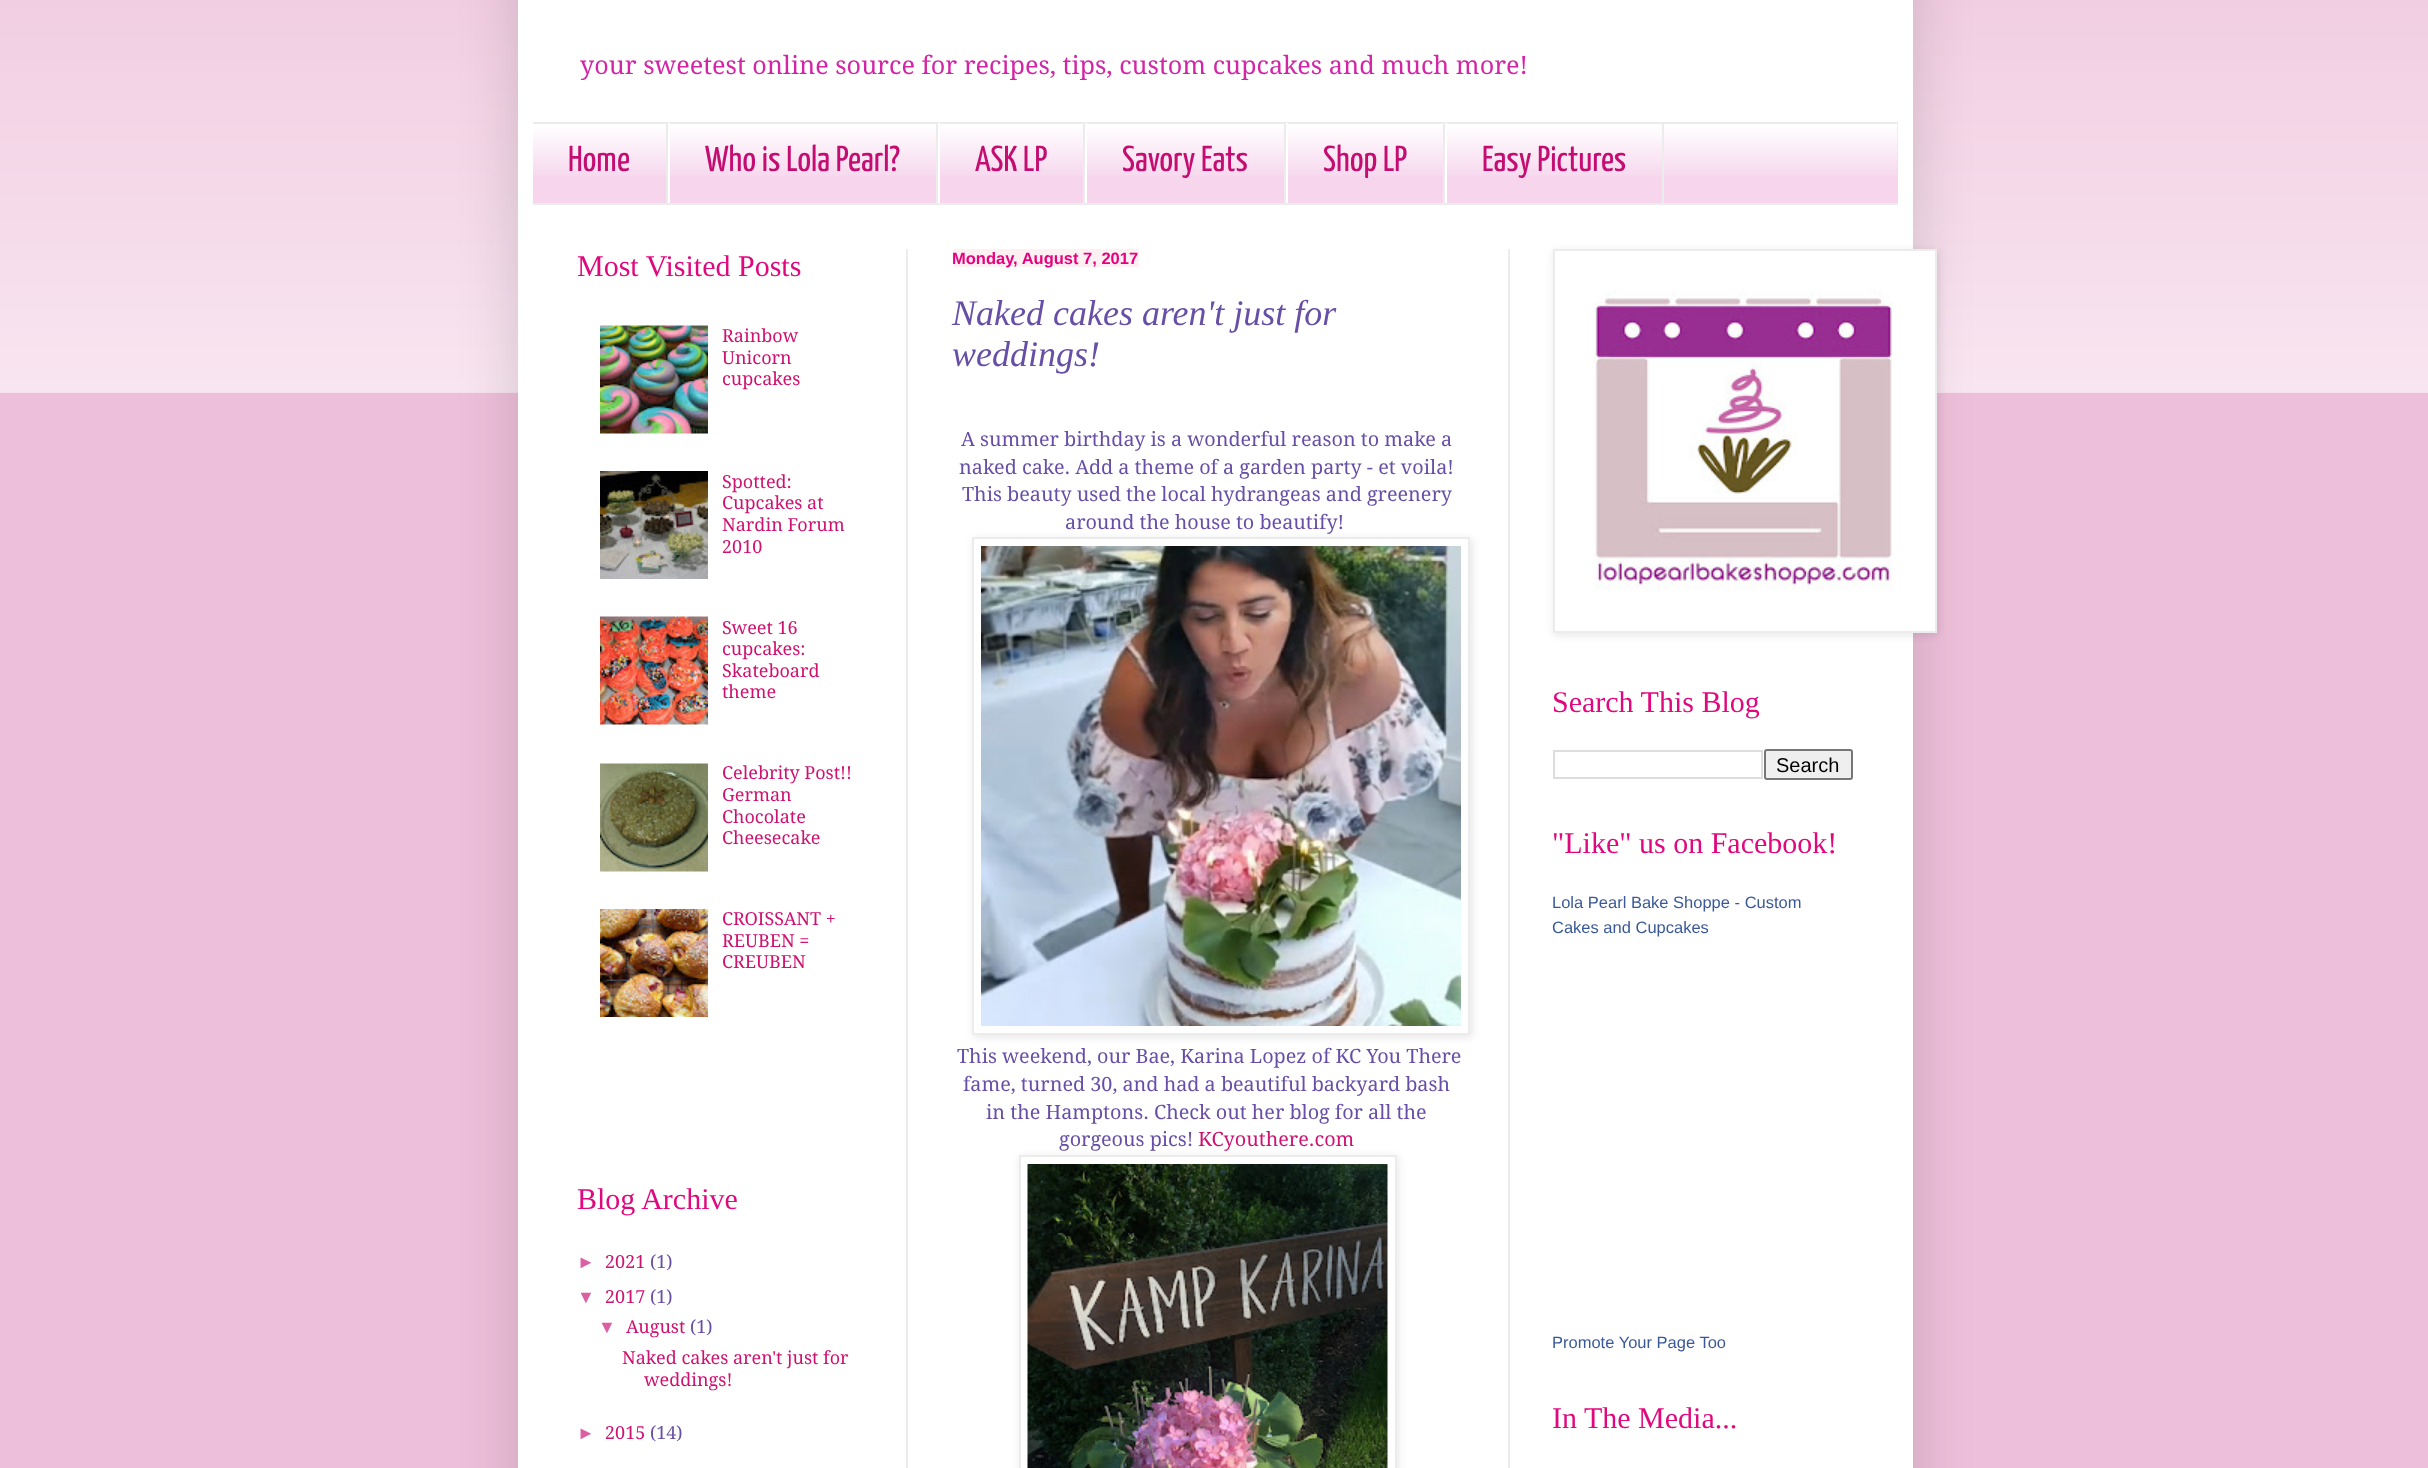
<!DOCTYPE html>
<meta charset="utf-8">
<style>body { margin: 0 } canvas { display: block }</style>
<canvas id="canvas" width="2428" height="1468"></canvas>
<script type="module">
  const canvas = document.getElementById("canvas");
  const ctx = canvas.getContext("2d");
  ctx.miterLimit = 4;
  ctx.fontKerning = "normal";
  async function loadImage(src) {
    const img = new Image();
    img.src = src;
    await img.decode();
    return img;
  }

  ctx.fillStyle = "#eebfda";
  ctx.fillRect(0, 0, 2428, 1468);
  ctx.drawImage(await loadImage("img1.png"), 0, 0, 2428, 393);
  ctx.fillStyle = "rgba(0, 0, 0, 0.15)";
  ctx.filter = "blur(30px)";
  ctx.beginPath();
  ctx.rect(518, -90, 1395, 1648);
  ctx.fill();
  ctx.filter = "none";
  ctx.fillStyle = "#ffffff";
  ctx.fillRect(518, 0, 1395, 1468);
  ctx.font = "25.2px Droid Serif";
  ctx.fillStyle = "#d226a7";
  ctx.fillText("your sweetest online source for recipes, tips, custom cupcakes and much more!", 580, 74);
  ctx.fillStyle = "#f6d5ed";
  ctx.fillRect(533, 124, 1365, 79);
  ctx.drawImage(await loadImage("img2.png"), 533, 124, 1365, 52);
  ctx.fillStyle = "#ececec";
  ctx.fillRect(533, 122, 1365, 2);
  ctx.fillRect(533, 203, 1365, 2);
  ctx.fillRect(666, 123, 2, 80);
  ctx.font = "200 36px Yanone Kaffeesatz";
  ctx.fillStyle = "#c40d70";
  ctx.fillText("Home", 568, 171);
  ctx.fillStyle = "#ececec";
  ctx.fillRect(936, 123, 2, 80);
  ctx.fillStyle = "#ffffff";
  ctx.fillRect(668, 123, 2, 80);
  ctx.fillStyle = "#c40d70";
  ctx.fillText("Who is Lola Pearl?", 705, 171);
  ctx.fillStyle = "#ececec";
  ctx.fillRect(1083, 123, 2, 80);
  ctx.fillStyle = "#ffffff";
  ctx.fillRect(938, 123, 2, 80);
  ctx.fillStyle = "#c40d70";
  ctx.fillText("ASK LP", 975, 171);
  ctx.fillStyle = "#ececec";
  ctx.fillRect(1284, 123, 2, 80);
  ctx.fillStyle = "#ffffff";
  ctx.fillRect(1085, 123, 2, 80);
  ctx.fillStyle = "#c40d70";
  ctx.fillText("Savory Eats", 1122, 171);
  ctx.fillStyle = "#ececec";
  ctx.fillRect(1443, 123, 2, 80);
  ctx.fillStyle = "#ffffff";
  ctx.fillRect(1286, 123, 2, 80);
  ctx.fillStyle = "#c40d70";
  ctx.fillText("Shop LP", 1323, 171);
  ctx.fillStyle = "#ececec";
  ctx.fillRect(1662, 123, 2, 80);
  ctx.fillStyle = "#ffffff";
  ctx.fillRect(1445, 123, 2, 80);
  ctx.fillStyle = "#c40d70";
  ctx.fillText("Easy Pictures", 1482, 171);
  ctx.fillStyle = "#ececec";
  ctx.fillRect(906, 249, 2, 1219);
  ctx.fillRect(1508, 249, 2, 1219);
  ctx.font = "30px Tinos";
  ctx.fillStyle = "#df097d";
  ctx.fillText("Most Visited Posts", 577, 276);
  ctx.drawImage(await loadImage("img3.png"), 600, 325, 108, 109);
  ctx.font = "18px Droid Serif";
  ctx.fillStyle = "#ce1270";
  ctx.fillText("Rainbow", 722, 342);
  ctx.fillText("Unicorn", 722, 364);
  ctx.fillText("cupcakes", 722, 385);
  ctx.drawImage(await loadImage("img4.png"), 600, 471, 108, 108);
  ctx.fillText("Spotted:", 722, 488);
  ctx.fillText("Cupcakes at", 722, 509);
  ctx.fillText("Nardin Forum", 722, 531);
  ctx.fillText("2010", 722, 553);
  ctx.drawImage(await loadImage("img5.png"), 600, 616, 108, 109);
  ctx.fillText("Sweet 16", 722, 634);
  ctx.fillText("cupcakes:", 722, 655);
  ctx.fillText("Skateboard", 722, 677);
  ctx.fillText("theme", 722, 698);
  ctx.drawImage(await loadImage("img6.png"), 600, 763, 108, 109);
  ctx.fillText("Celebrity Post!!", 722, 779);
  ctx.fillText("German", 722, 801);
  ctx.fillText("Chocolate", 722, 823);
  ctx.fillText("Cheesecake", 722, 844);
  ctx.drawImage(await loadImage("img7.png"), 600, 909, 108, 108);
  ctx.fillText("CROISSANT +", 722, 925);
  ctx.fillText("REUBEN =", 722, 947);
  ctx.fillText("CREUBEN", 722, 968);
  ctx.font = "30px Tinos";
  ctx.fillStyle = "#df097d";
  ctx.fillText("Blog Archive", 577, 1209);
  ctx.font = "18px Liberation Sans";
  ctx.fillStyle = "#db5fa3";
  ctx.fillText("►", 577, 1268);
  ctx.font = "18px Droid Serif";
  ctx.fillStyle = "#ce1270";
  ctx.fillText("2021", 605, 1268);
  ctx.fillStyle = "#674ea7";
  ctx.fillText("(1)", 650, 1268);
  ctx.font = "18px Liberation Sans";
  ctx.fillStyle = "#db5fa3";
  ctx.fillText("▼", 577, 1303);
  ctx.font = "18px Droid Serif";
  ctx.fillStyle = "#ce1270";
  ctx.fillText("2017", 605, 1303);
  ctx.fillStyle = "#674ea7";
  ctx.fillText("(1)", 650, 1303);
  ctx.font = "18px Liberation Sans";
  ctx.fillStyle = "#db5fa3";
  ctx.fillText("▼", 598, 1333);
  ctx.font = "18px Droid Serif";
  ctx.fillStyle = "#ce1270";
  ctx.fillText("August", 626, 1333);
  ctx.fillStyle = "#674ea7";
  ctx.fillText("(1)", 690, 1333);
  ctx.fillStyle = "#ce1270";
  ctx.fillText("Naked cakes aren't just for", 622, 1364);
  ctx.fillText("weddings!", 644, 1386);
  ctx.font = "18px Liberation Sans";
  ctx.fillStyle = "#db5fa3";
  ctx.fillText("►", 577, 1439);
  ctx.font = "18px Droid Serif";
  ctx.fillStyle = "#ce1270";
  ctx.fillText("2015", 605, 1439);
  ctx.fillStyle = "#674ea7";
  ctx.fillText("(14)", 650, 1439);
  ctx.fillStyle = "#fcf0f2";
  ctx.fillRect(953, 249, 186, 18);
  ctx.font = "bold 16.5px Liberation Sans";
  ctx.fillStyle = "#e7007e";
  ctx.fillText("Monday, August 7, 2017", 952, 264);
  ctx.font = "italic 36px Liberation Serif";
  ctx.fillStyle = "#674ea7";
  ctx.fillText("Naked cakes aren't just for", 952, 325);
  ctx.fillText("weddings!", 952, 366);
  ctx.font = "19.8px Droid Serif";
  ctx.fillText("A summer birthday is a wonderful reason to make a", 961, 446);
  ctx.fillText("naked cake. Add a theme of a garden party - et voila!", 959, 474);
  ctx.fillText("This beauty used the local hydrangeas and greenery", 962, 501);
  ctx.fillText("around the house to beautify!", 1065, 529);
  ctx.save();
  ctx.beginPath();
  ctx.moveTo(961, 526);
  ctx.lineTo(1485, 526);
  ctx.lineTo(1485, 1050);
  ctx.lineTo(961, 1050);
  ctx.closePath();
  ctx.moveTo(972, 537);
  ctx.lineTo(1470, 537);
  ctx.lineTo(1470, 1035);
  ctx.lineTo(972, 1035);
  ctx.closePath();
  ctx.clip("evenodd");
  ctx.fillStyle = "rgba(0, 0, 0, 0.1)";
  ctx.filter = "blur(4px)";
  ctx.beginPath();
  ctx.rect(974, 539, 498, 498);
  ctx.fill();
  ctx.filter = "none";
  ctx.restore();
  ctx.strokeStyle = "#ececec";
  ctx.lineWidth = 2;
  ctx.strokeRect(973, 538, 496, 496);
  ctx.drawImage(await loadImage("img8.png"), 981, 546, 480, 480);
  ctx.fillText("This weekend, our Bae, Karina Lopez of KC You There", 957, 1063);
  ctx.fillText("fame, turned 30, and had a beautiful backyard bash", 963, 1091);
  ctx.fillText("in the Hamptons. Check out her blog for all the", 986, 1119);
  ctx.fillText("gorgeous pics!", 1059, 1146);
  ctx.fillStyle = "#ce1270";
  ctx.fillText("KCyouthere.com", 1198, 1146);
  ctx.fillStyle = "rgba(0, 0, 0, 0.1)";
  ctx.filter = "blur(4px)";
  ctx.beginPath();
  ctx.rect(1020, 1157, 378, 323);
  ctx.fill();
  ctx.filter = "none";
  ctx.fillStyle = "#ffffff";
  ctx.beginPath();
  ctx.rect(1020, 1156, 376, 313);
  ctx.fill();
  ctx.stroke();
  ctx.drawImage(await loadImage("img9.png"), 1027, 1164, 361, 304);
  ctx.fillStyle = "rgba(0, 0, 0, 0.1)";
  ctx.filter = "blur(4px)";
  ctx.beginPath();
  ctx.rect(1554, 251, 384, 384);
  ctx.fill();
  ctx.filter = "none";
  ctx.fillStyle = "#ffffff";
  ctx.beginPath();
  ctx.rect(1554, 250, 382, 382);
  ctx.fill();
  ctx.stroke();
  ctx.drawImage(await loadImage("img10.png"), 1593, 290, 300, 300);
  ctx.font = "30px Tinos";
  ctx.fillStyle = "#df097d";
  ctx.fillText("Search This Blog", 1552, 712);
  ctx.strokeStyle = "#dddddd";
  ctx.strokeRect(1554, 751, 208, 27);
  ctx.fillStyle = "#efefef";
  ctx.beginPath();
  ctx.roundRect(1765, 750, 87, 29, 2);
  ctx.fill();
  ctx.strokeStyle = "#767676";
  ctx.stroke();
  ctx.font = "20px Liberation Sans";
  ctx.fillStyle = "#000000";
  ctx.fillText("Search", 1776, 772);
  ctx.font = "30px Tinos";
  ctx.fillStyle = "#df097d";
  ctx.fillText("\"Like\" us on Facebook!", 1552, 853);
  ctx.font = "16.5px Liberation Sans";
  ctx.fillStyle = "#3b5998";
  ctx.fillText("Lola Pearl Bake Shoppe - Custom", 1552, 908);
  ctx.fillText("Cakes and Cupcakes", 1552, 933);
  ctx.fillText("Promote Your Page Too", 1552, 1348);
  ctx.font = "30px Tinos";
  ctx.fillStyle = "#df097d";
  ctx.fillText("In The Media...", 1552, 1428);
</script>
